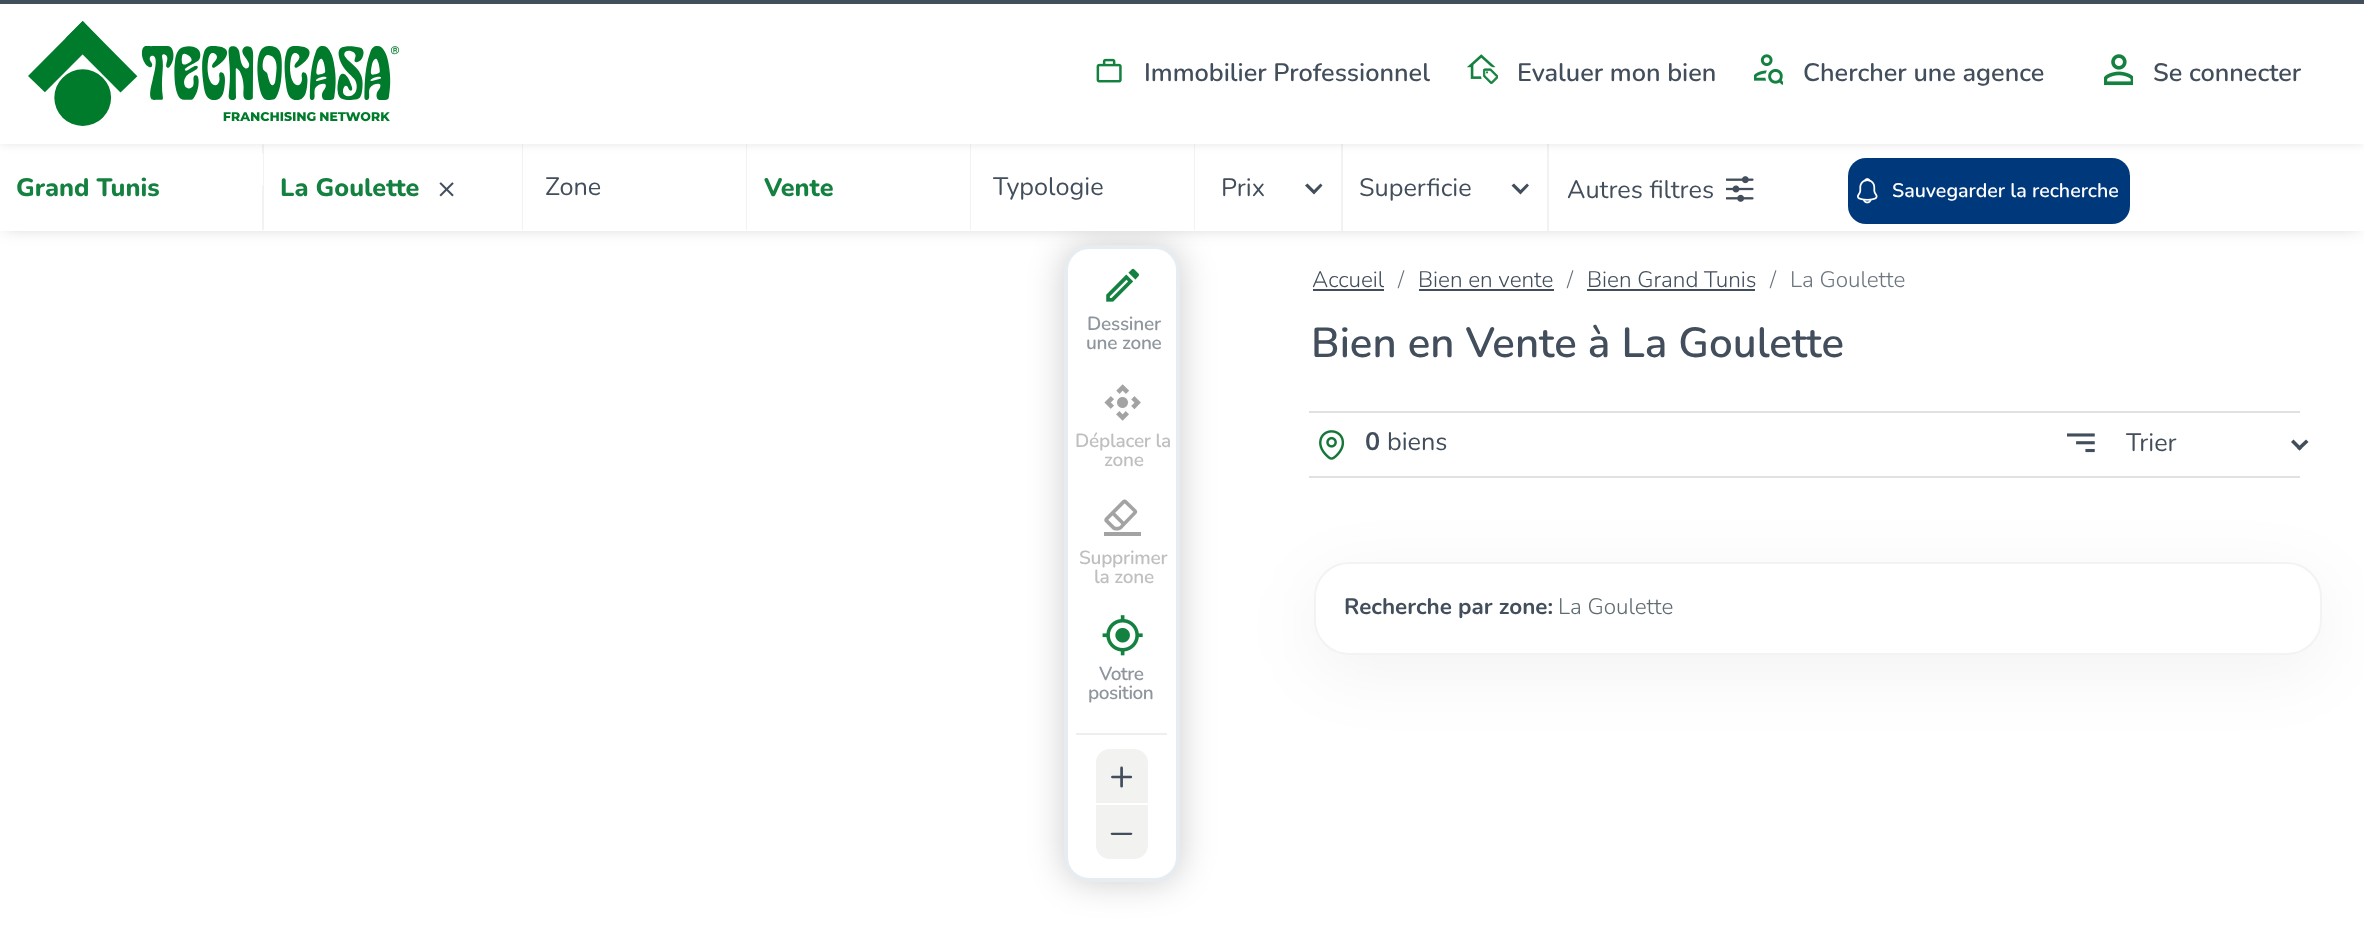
<!DOCTYPE html>
<meta charset="utf-8">
<style>body { margin: 0 } canvas { display: block }</style>
<canvas id="canvas" width="2364" height="943"></canvas>
<script type="module">
  const canvas = document.getElementById("canvas");
  const ctx = canvas.getContext("2d");
  ctx.miterLimit = 4;
  ctx.fontKerning = "normal";
  async function loadImage(src) {
    const img = new Image();
    img.src = src;
    await img.decode();
    return img;
  }

  ctx.fillStyle = "#ffffff";
  ctx.fillRect(0, 0, 2364, 943);
  ctx.fillStyle = "rgba(0, 0, 0, 0.2)";
  ctx.filter = "blur(17.5px)";
  ctx.beginPath();
  ctx.roundRect(1064, 245, 116, 637, 25);
  ctx.fill();
  ctx.filter = "none";
  ctx.fillStyle = "#ffffff";
  ctx.beginPath();
  ctx.roundRect(1066, 247, 112, 633, 23);
  ctx.fill();
  ctx.strokeStyle = "#e7ecf0";
  ctx.lineWidth = 4;
  ctx.stroke();
  ctx.fillStyle = "rgba(66, 78, 91, 0.34)";
  ctx.filter = "blur(9px)";
  ctx.beginPath();
  ctx.rect(5, 149, 2354, 77);
  ctx.fill();
  ctx.filter = "none";
  ctx.fillStyle = "#ffffff";
  ctx.fillRect(0, 144, 2364, 87);
  ctx.fillStyle = "#f2f2f2";
  ctx.beginPath();
  ctx.moveTo(264, 144);
  ctx.lineTo(264, 231);
  ctx.lineTo(262, 229);
  ctx.lineTo(262, 145);
  ctx.closePath();
  ctx.fill();
  ctx.fillStyle = "#ffffff";
  ctx.fillRect(262, 154, 1, 32);
  ctx.fillStyle = "#f2f2f2";
  ctx.beginPath();
  ctx.moveTo(523, 144);
  ctx.lineTo(523, 231);
  ctx.lineTo(522, 229);
  ctx.lineTo(522, 145);
  ctx.closePath();
  ctx.fill();
  ctx.beginPath();
  ctx.moveTo(747, 144);
  ctx.lineTo(747, 231);
  ctx.lineTo(746, 229);
  ctx.lineTo(746, 145);
  ctx.closePath();
  ctx.fill();
  ctx.beginPath();
  ctx.moveTo(971, 144);
  ctx.lineTo(971, 231);
  ctx.lineTo(970, 229);
  ctx.lineTo(970, 145);
  ctx.closePath();
  ctx.fill();
  ctx.beginPath();
  ctx.moveTo(1195, 144);
  ctx.lineTo(1195, 231);
  ctx.lineTo(1194, 229);
  ctx.lineTo(1194, 145);
  ctx.closePath();
  ctx.fill();
  ctx.fillRect(1341, 144, 2, 87);
  ctx.fillRect(1547, 144, 2, 87);
  ctx.fillStyle = "#00387c";
  ctx.beginPath();
  ctx.roundRect(1848, 158, 282, 66, 18);
  ctx.fill();
  ctx.fillStyle = "rgba(0, 0, 0, 0.1)";
  ctx.filter = "blur(5px)";
  ctx.beginPath();
  ctx.rect(0, 0, 2364, 144);
  ctx.fill();
  ctx.filter = "none";
  ctx.fillStyle = "#ffffff";
  ctx.fillRect(0, 4, 2364, 140);
  ctx.fillStyle = "#424e5b";
  ctx.fillRect(0, 0, 2364, 4);
  ctx.drawImage(await loadImage("img1.png"), 28, 21, 371, 105);
  ctx.drawImage(await loadImage("img2.png"), 1096, 58, 26, 25);
  ctx.font = "600 25.25px Nunito";
  ctx.fillText("Immobilier Professionnel", 1144, 81);
  ctx.drawImage(await loadImage("img3.png"), 1467, 54, 31, 30);
  ctx.fillText("Evaluer mon bien", 1517, 81);
  ctx.drawImage(await loadImage("img4.png"), 1754, 54, 29, 31);
  ctx.fillText("Chercher une agence", 1803, 81);
  ctx.drawImage(await loadImage("img5.png"), 2104, 54, 29, 32);
  ctx.fillText("Se connecter", 2153, 81);
  ctx.font = "800 25.25px Nunito";
  ctx.fillStyle = "#158140";
  ctx.fillText("Grand Tunis", 16, 196);
  ctx.fillText("La Goulette", 280, 196);
  ctx.drawImage(await loadImage("img6.png"), 439, 182, 15, 15);
  ctx.font = "25.25px Nunito";
  ctx.fillStyle = "#424e5b";
  ctx.fillText("Zone", 545, 195);
  ctx.font = "800 25.25px Nunito";
  ctx.fillStyle = "#158140";
  ctx.fillText("Vente", 764, 196);
  ctx.font = "25.25px Nunito";
  ctx.fillStyle = "#424e5b";
  ctx.fillText("Typologie", 993, 195);
  ctx.fillText("Prix", 1221, 196);
  ctx.beginPath();
  ctx.moveTo(1320.5, 183.5);
  ctx.lineTo(1322.5, 185.5);
  ctx.lineTo(1314, 194.5);
  ctx.lineTo(1305, 185.5);
  ctx.lineTo(1307.5, 183.5);
  ctx.lineTo(1314, 190);
  ctx.closePath();
  ctx.fill();
  ctx.fillText("Superficie", 1359, 196);
  ctx.beginPath();
  ctx.moveTo(1527, 183.5);
  ctx.lineTo(1529, 185.5);
  ctx.lineTo(1520.5, 194.5);
  ctx.lineTo(1511.5, 185.5);
  ctx.lineTo(1514, 183.5);
  ctx.lineTo(1520.5, 190);
  ctx.closePath();
  ctx.fill();
  ctx.fillText("Autres filtres", 1567, 198);
  ctx.drawImage(await loadImage("img7.png"), 1726, 176, 28, 26);
  ctx.drawImage(await loadImage("img8.png"), 1857, 178, 21, 26);
  ctx.font = "600 19.6px Nunito";
  ctx.fillStyle = "#ffffff";
  ctx.fillText("Sauvegarder la recherche", 1892, 197);
  ctx.drawImage(await loadImage("img9.png"), 1106, 268, 33, 34);
  ctx.letterSpacing = "-0.25px";
  ctx.font = "600 19px Nunito";
  ctx.fillStyle = "#8e959d";
  ctx.fillText("Dessiner", 1087, 330);
  ctx.fillText("une zone", 1086, 349);
  ctx.drawImage(await loadImage("img10.png"), 1104, 384, 37, 37);
  ctx.fillStyle = "#bfbfbf";
  ctx.fillText("Déplacer la", 1075, 447);
  ctx.fillText("zone", 1104, 466);
  ctx.drawImage(await loadImage("img11.png"), 1104, 499, 37, 37);
  ctx.fillText("Supprimer", 1079, 564);
  ctx.fillText("la zone", 1094, 583);
  ctx.drawImage(await loadImage("img12.png"), 1102, 615, 41, 41);
  ctx.letterSpacing = "-0.5px";
  ctx.fillStyle = "#8e959d";
  ctx.fillText("Votre", 1099, 680);
  ctx.fillText("position", 1088, 699);
  ctx.fillStyle = "#eeeeee";
  ctx.fillRect(1076, 733, 91, 2);
  ctx.fillStyle = "#f2f3f0";
  ctx.beginPath();
  ctx.roundRect(1096, 749, 52, 56, [14, 14, 0, 0]);
  ctx.fill();
  ctx.fillStyle = "#ffffff";
  ctx.fillRect(1096, 803, 52, 2);
  ctx.letterSpacing = "0px";
  ctx.font = "42px Nunito";
  ctx.fillStyle = "#424e5b";
  ctx.fillText("+", 1109, 789);
  ctx.fillStyle = "#f2f3f0";
  ctx.beginPath();
  ctx.roundRect(1096, 805, 52, 54, [0, 0, 14, 14]);
  ctx.fill();
  ctx.fillStyle = "#424e5b";
  ctx.fillText("–", 1111, 845);
  ctx.font = "300 22.5px Nunito";
  ctx.fillText("Accueil", 1312, 287);
  ctx.fillRect(1313, 289, 71, 2);
  ctx.fillStyle = "#6c757d";
  ctx.fillText("/", 1398, 287);
  ctx.fillStyle = "#424e5b";
  ctx.fillText("Bien en vente", 1418, 287);
  ctx.fillRect(1419, 289, 135, 2);
  ctx.fillStyle = "#6c757d";
  ctx.fillText("/", 1567, 287);
  ctx.fillStyle = "#424e5b";
  ctx.fillText("Bien Grand Tunis", 1587, 287);
  ctx.fillRect(1587, 289, 168, 2);
  ctx.fillStyle = "#6c757d";
  ctx.fillText("/", 1770, 287);
  ctx.fillText("La Goulette", 1790, 287);
  ctx.font = "600 42px Nunito";
  ctx.fillStyle = "#424e5b";
  ctx.fillText("Bien en Vente à La Goulette", 1311, 357);
  ctx.fillStyle = "#e1e1e1";
  ctx.fillRect(1309, 411, 991, 2);
  ctx.fillRect(1309, 476, 991, 2);
  ctx.drawImage(await loadImage("img13.png"), 1319, 430, 26, 30);
  ctx.font = "bold 25.25px Nunito";
  ctx.fillStyle = "#424e5b";
  ctx.fillText("0", 1365, 450);
  ctx.font = "25.25px Nunito";
  ctx.fillText("biens", 1387, 450);
  ctx.drawImage(await loadImage("img14.png"), 2067, 433, 28, 20);
  ctx.fillText("Trier", 2126, 451);
  ctx.beginPath();
  ctx.moveTo(2306, 439.5);
  ctx.lineTo(2308.5, 442);
  ctx.lineTo(2299.5, 450.5);
  ctx.lineTo(2297, 448);
  ctx.closePath();
  ctx.fill();
  ctx.beginPath();
  ctx.moveTo(2293.5, 439.5);
  ctx.lineTo(2302, 448);
  ctx.lineTo(2299.5, 450.5);
  ctx.lineTo(2291, 442);
  ctx.closePath();
  ctx.fill();
  ctx.fillStyle = "rgba(0, 0, 0, 0.05)";
  ctx.filter = "blur(35px)";
  ctx.beginPath();
  ctx.roundRect(1314, 579, 1008, 93, 35);
  ctx.fill();
  ctx.filter = "none";
  ctx.fillStyle = "#ffffff";
  ctx.beginPath();
  ctx.roundRect(1315, 563, 1006, 91, 34);
  ctx.fill();
  ctx.strokeStyle = "#f1f3f4";
  ctx.lineWidth = 2;
  ctx.stroke();
  ctx.font = "bold 22.5px Nunito";
  ctx.fillStyle = "#424e5b";
  ctx.fillText("Recherche par zone:", 1344, 614);
  ctx.font = "300 22.5px Nunito";
  ctx.fillStyle = "#5e6b70";
  ctx.fillText("La Goulette", 1558, 614);
</script>
